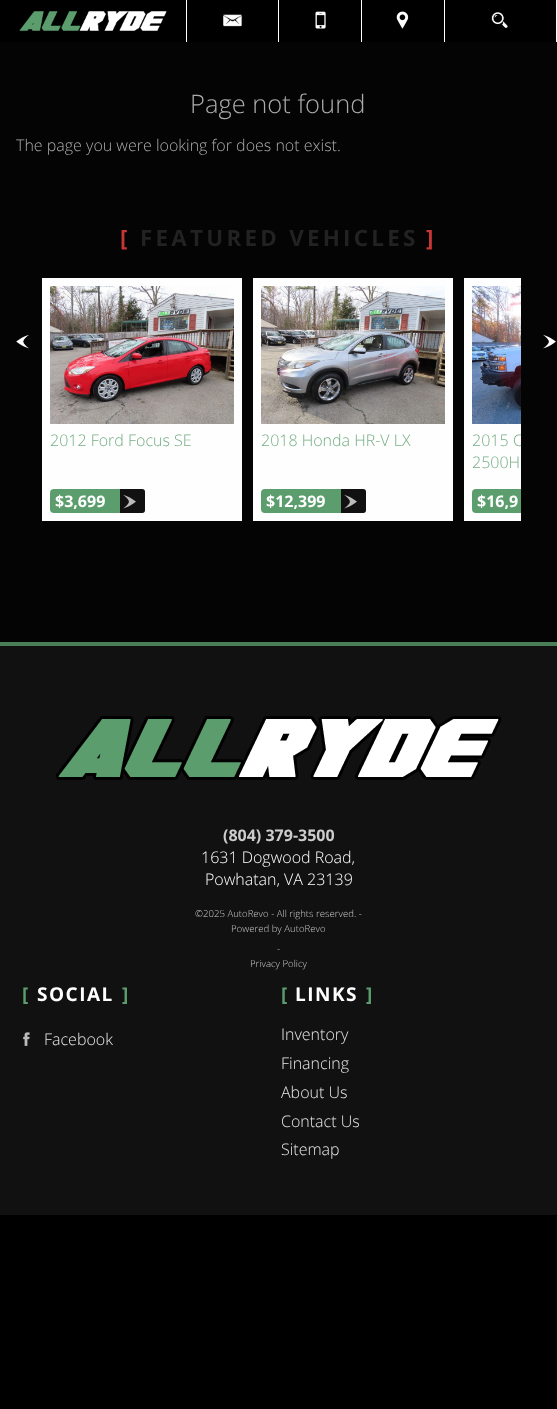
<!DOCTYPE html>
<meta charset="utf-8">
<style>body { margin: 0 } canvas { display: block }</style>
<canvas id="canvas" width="557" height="1409"></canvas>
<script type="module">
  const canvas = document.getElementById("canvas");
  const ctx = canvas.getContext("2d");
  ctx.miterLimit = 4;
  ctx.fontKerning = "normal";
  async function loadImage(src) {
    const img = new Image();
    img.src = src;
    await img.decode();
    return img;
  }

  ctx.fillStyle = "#000000";
  ctx.fillRect(0, 0, 557, 1409);
  ctx.drawImage(await loadImage("img1.png"), 19, 11, 148, 20);
  ctx.fillStyle = "#ffffff";
  ctx.fillRect(278, 0, 1, 42);
  ctx.fillRect(186, 0, 1, 42);
  ctx.drawImage(await loadImage("img2.png"), 223, 14, 20, 13);
  ctx.fillRect(361, 0, 1, 42);
  ctx.drawImage(await loadImage("img3.png"), 315, 11, 11, 18);
  ctx.fillRect(444, 0, 1, 42);
  ctx.drawImage(await loadImage("img4.png"), 396, 11, 13, 18);
  ctx.fillRect(556, 0, 1, 42);
  ctx.drawImage(await loadImage("img5.png"), 491, 12, 17, 16);
  ctx.fillStyle = "#040404";
  ctx.fillRect(0, 42, 557, 600);
  ctx.font = "300 25.5px Open Sans";
  ctx.fillStyle = "#ababab";
  ctx.fillText("Page not found", 190, 113);
  ctx.font = "300 16px Open Sans";
  ctx.fillText("The page you were looking for does not exist.", 16, 151);
  ctx.letterSpacing = "3.25px";
  ctx.font = "bold 22.4px Open Sans";
  ctx.fillStyle = "#c73535";
  ctx.fillText("[", 120, 246);
  ctx.fillStyle = "#222222";
  ctx.fillText("FEATURED VEHICLES", 140, 246);
  ctx.fillStyle = "#c73535";
  ctx.fillText("]", 426, 246);
  ctx.drawImage(await loadImage("img6.png"), 15, 335, 14, 14);
  ctx.drawImage(await loadImage("img7.png"), 543, 334, 13, 15);
  ctx.fillStyle = "#fefefe";
  ctx.fillRect(42, 278, 200, 243);
  ctx.drawImage(await loadImage("img8.png"), 50, 286, 184, 138);
  ctx.letterSpacing = "0px";
  ctx.font = "300 16px Open Sans";
  ctx.fillStyle = "#74ae84";
  ctx.fillText("2012 Ford Focus SE", 50, 446);
  ctx.fillStyle = "#5c9d6e";
  ctx.beginPath();
  ctx.roundRect(50, 489, 95, 24, 4);
  ctx.fill();
  ctx.font = "bold 16px Open Sans";
  ctx.fillStyle = "#ffffff";
  ctx.fillText("$3,699", 55, 507);
  ctx.fillStyle = "#111111";
  ctx.beginPath();
  ctx.roundRect(120, 489, 25, 24, [0, 3, 3, 0]);
  ctx.fill();
  ctx.drawImage(await loadImage("img9.png"), 123, 494, 13, 15);
  ctx.fillStyle = "#fefefe";
  ctx.fillRect(253, 278, 200, 243);
  ctx.drawImage(await loadImage("img10.png"), 261, 286, 184, 138);
  ctx.font = "300 16px Open Sans";
  ctx.fillStyle = "#74ae84";
  ctx.fillText("2018 Honda HR-V LX", 261, 446);
  ctx.fillStyle = "#5c9d6e";
  ctx.beginPath();
  ctx.roundRect(261, 489, 105, 24, 4);
  ctx.fill();
  ctx.font = "bold 16px Open Sans";
  ctx.fillStyle = "#ffffff";
  ctx.fillText("$12,399", 266, 507);
  ctx.fillStyle = "#111111";
  ctx.beginPath();
  ctx.roundRect(341, 489, 25, 24, [0, 3, 3, 0]);
  ctx.fill();
  ctx.drawImage(await loadImage("img9.png"), 344, 494, 13, 15);
  ctx.fillStyle = "#fefefe";
  ctx.fillRect(464, 278, 57, 243);
  ctx.drawImage(await loadImage("img11.png"), 472, 286, 49, 138);
  ctx.font = "300 16px Open Sans";
  ctx.fillStyle = "#74ae84";
  ctx.fillText("2015", 472, 446);
  ctx.save();
  ctx.beginPath();
  ctx.rect(36, 273, 485, 254);
  ctx.clip();
  ctx.fillText("C", 513, 446);
  ctx.restore();
  ctx.fillText("2500H", 472, 468);
  ctx.fillStyle = "#5c9d6e";
  ctx.beginPath();
  ctx.roundRect(472, 489, 49, 24, [4, 0, 0, 4]);
  ctx.fill();
  ctx.font = "bold 16px Open Sans";
  ctx.fillStyle = "#ffffff";
  ctx.fillText("$16,9", 477, 507);
  ctx.fillStyle = "#111111";
  ctx.fillRect(0, 646, 557, 569);
  ctx.fillStyle = "#497d57";
  ctx.fillRect(0, 642, 557, 4);
  ctx.drawImage(await loadImage("img12.png"), 55, 716, 447, 64);
  ctx.fillStyle = "#cccccc";
  ctx.fillText("(804) 379-3500", 223, 841);
  ctx.font = "300 16px Open Sans";
  ctx.fillStyle = "#ffffff";
  ctx.fillText("1631 Dogwood Road,", 201, 863);
  ctx.fillText("Powhatan, VA 23139", 205, 885);
  ctx.font = "300 9.6px Open Sans";
  ctx.fillStyle = "#cccccc";
  ctx.fillText("©2025 AutoRevo - All rights reserved. -", 195, 917);
  ctx.fillText("Powered by AutoRevo", 231, 932);
  ctx.fillText("-", 277, 952);
  ctx.fillText("Privacy Policy", 250, 967);
  ctx.letterSpacing = "1.5px";
  ctx.font = "bold 19px Open Sans";
  ctx.fillStyle = "#5c9d6e";
  ctx.fillText("[", 22, 1001);
  ctx.fillStyle = "#ffffff";
  ctx.fillText("SOCIAL", 37, 1001);
  ctx.fillStyle = "#5c9d6e";
  ctx.fillText("]", 122, 1001);
  ctx.drawImage(await loadImage("img13.png"), 23, 1032, 7, 14);
  ctx.letterSpacing = "0px";
  ctx.font = "300 16px Open Sans";
  ctx.fillStyle = "#e6e6e6";
  ctx.fillText("Facebook", 44, 1045);
  ctx.letterSpacing = "1.5px";
  ctx.font = "bold 19px Open Sans";
  ctx.fillStyle = "#5c9d6e";
  ctx.fillText("[", 281, 1001);
  ctx.fillStyle = "#ffffff";
  ctx.fillText("LINKS", 295, 1001);
  ctx.fillStyle = "#5c9d6e";
  ctx.fillText("]", 366, 1001);
  ctx.letterSpacing = "0px";
  ctx.font = "300 16px Open Sans";
  ctx.fillStyle = "#e6e6e6";
  ctx.fillText("Inventory", 281, 1040);
  ctx.fillText("Financing", 281, 1069);
  ctx.fillText("About Us", 281, 1098);
  ctx.fillText("Contact Us", 281, 1127);
  ctx.fillText("Sitemap", 281, 1155);
</script>
